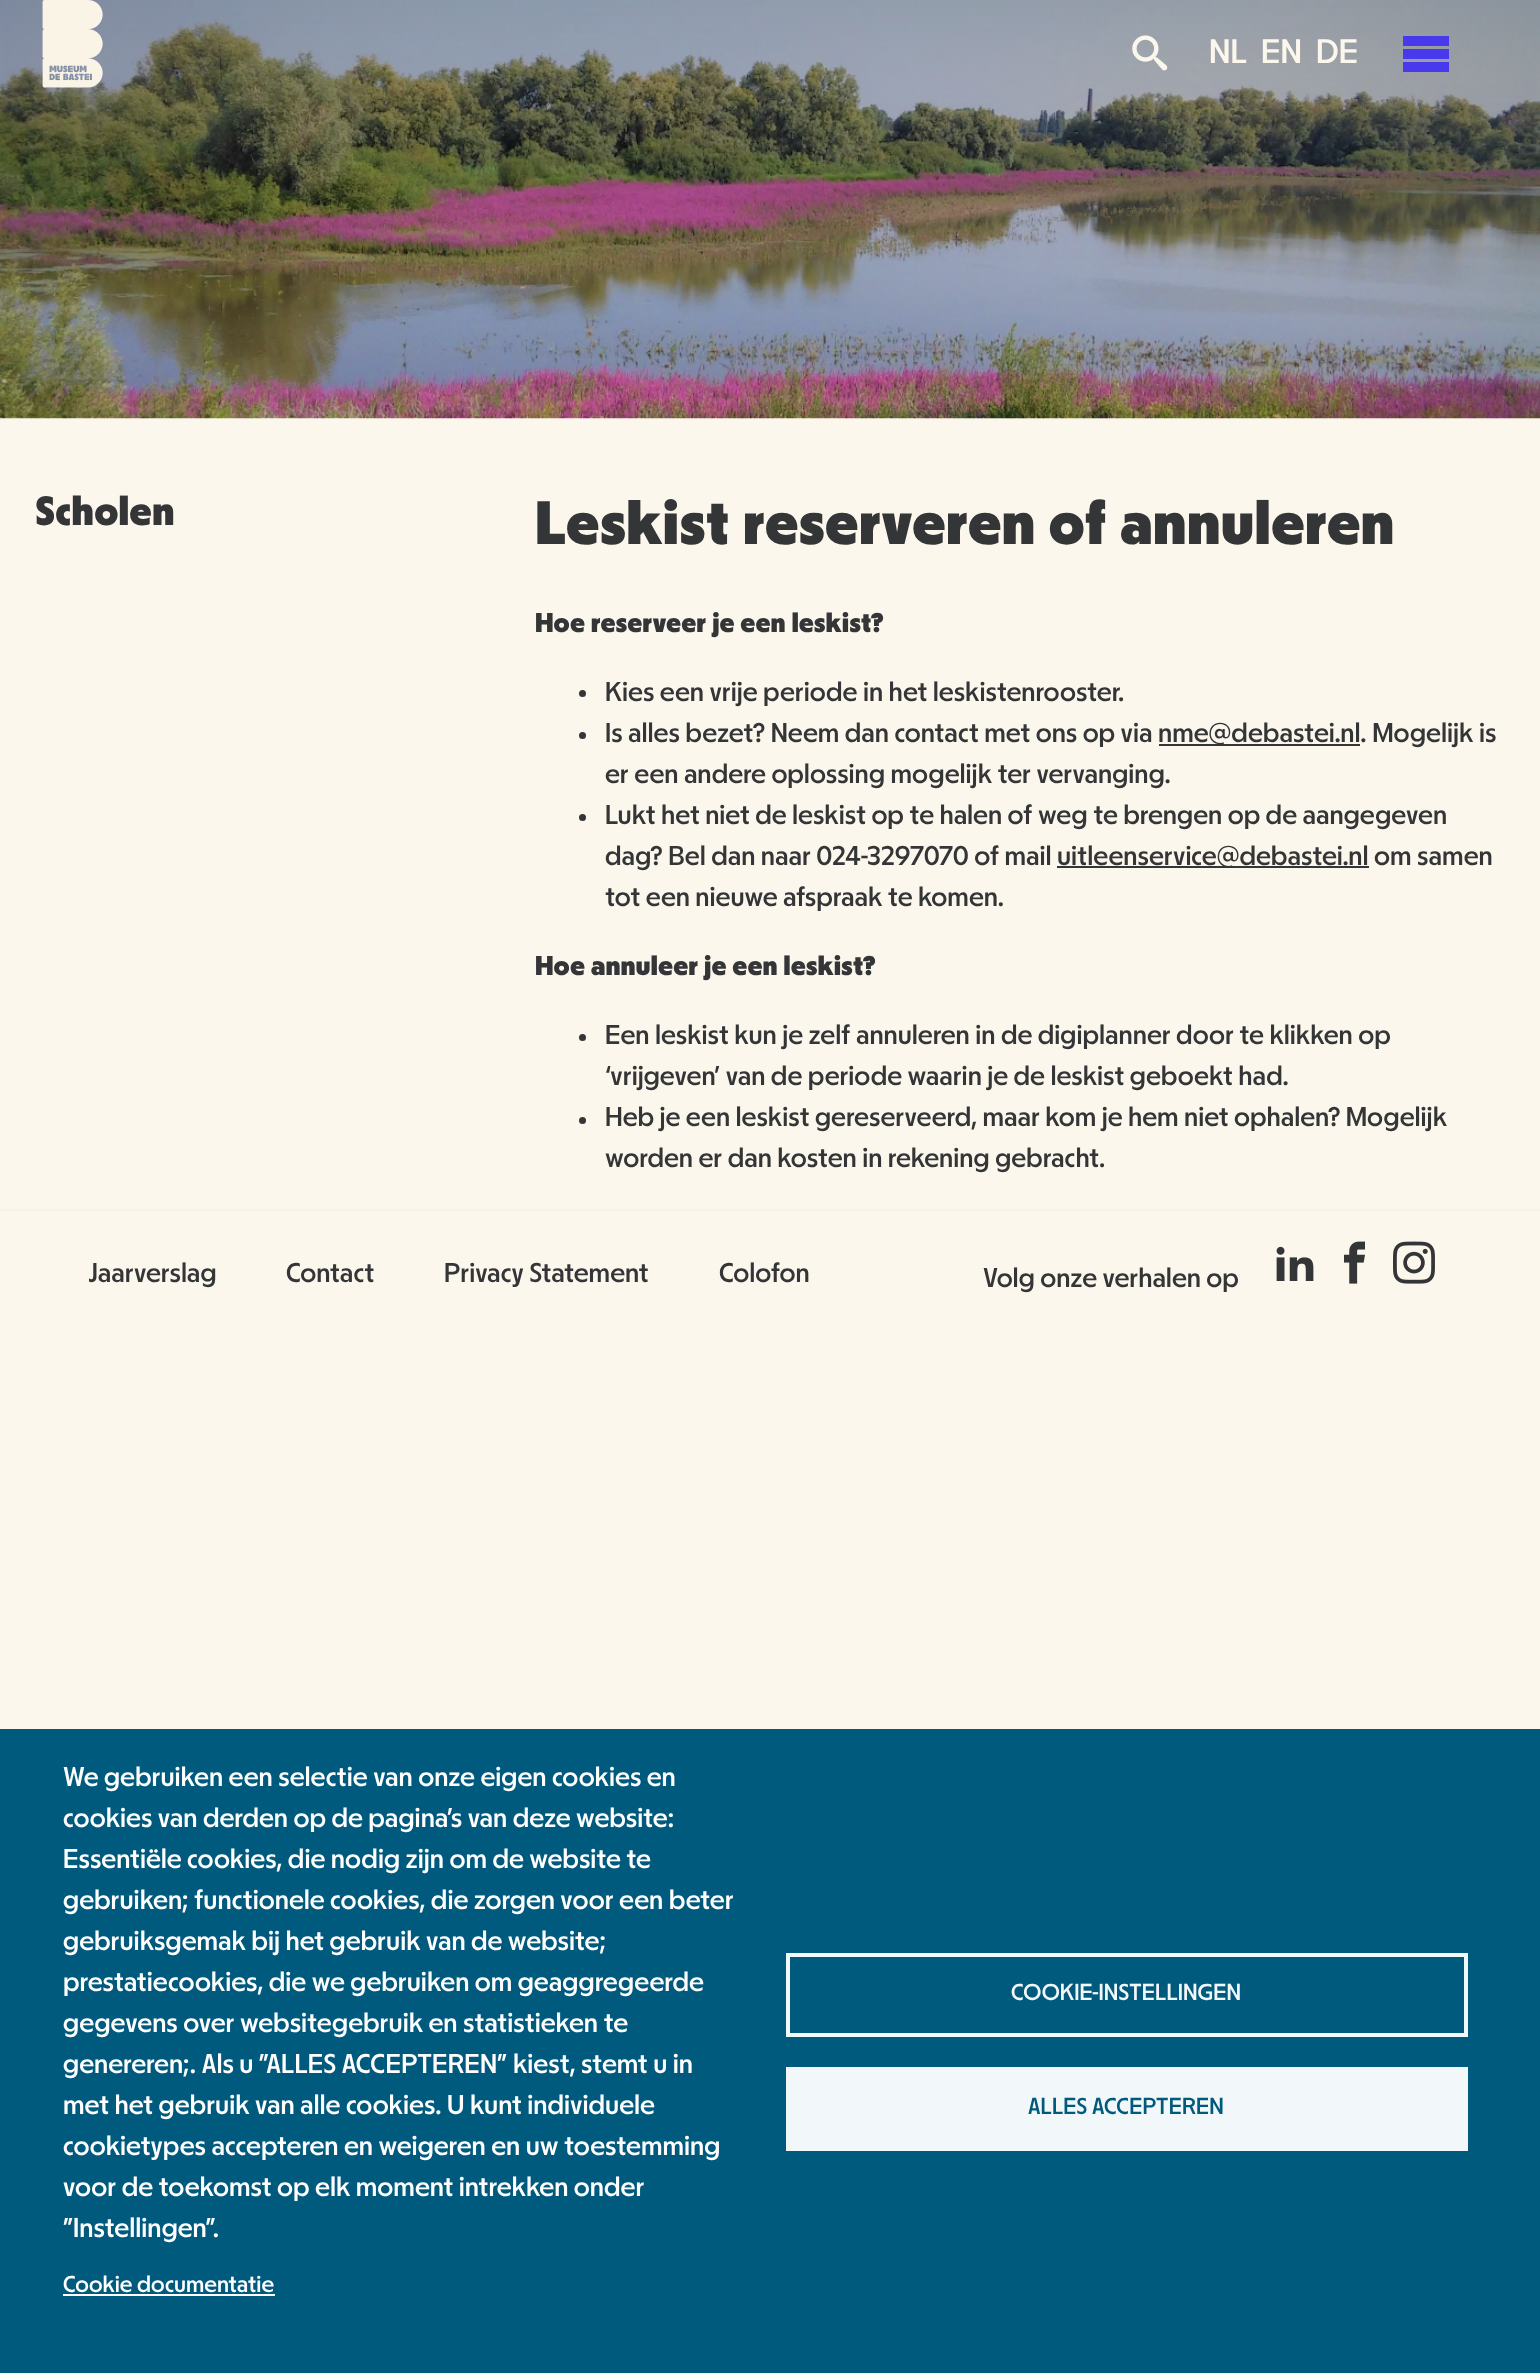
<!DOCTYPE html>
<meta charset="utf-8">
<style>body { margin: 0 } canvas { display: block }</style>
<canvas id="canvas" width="1540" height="2373"></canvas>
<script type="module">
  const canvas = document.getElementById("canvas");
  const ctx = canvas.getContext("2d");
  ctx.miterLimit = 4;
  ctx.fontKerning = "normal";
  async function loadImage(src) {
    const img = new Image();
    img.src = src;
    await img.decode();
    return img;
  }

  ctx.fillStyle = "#fcf7ed";
  ctx.fillRect(0, 0, 1540, 2373);
  ctx.drawImage(await loadImage("img1.png"), 0, 0, 1540, 419);
  ctx.drawImage(await loadImage("img2.png"), 42, 0, 61, 88);
  ctx.drawImage(await loadImage("img3.png"), 1132, 35, 36, 36);
  ctx.font = "35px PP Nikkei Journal";
  ctx.fillText("NL", 1209, 63);
  ctx.fillText("EN", 1261, 63);
  ctx.fillText("DE", 1316, 63);
  ctx.fillStyle = "#483aec";
  ctx.beginPath();
  ctx.moveTo(1403, 36);
  ctx.lineTo(1449, 36);
  ctx.lineTo(1449, 46);
  ctx.lineTo(1403, 46);
  ctx.closePath();
  ctx.moveTo(1403, 49);
  ctx.lineTo(1449, 49);
  ctx.lineTo(1449, 59);
  ctx.lineTo(1403, 59);
  ctx.closePath();
  ctx.moveTo(1403, 62);
  ctx.lineTo(1449, 62);
  ctx.lineTo(1449, 72);
  ctx.lineTo(1403, 72);
  ctx.closePath();
  ctx.fill();
  ctx.fillStyle = "#005a7e";
  ctx.fillRect(0, 1729, 1540, 644);
  ctx.font = "28px PP Nikkei Journal";
  ctx.fillStyle = "#ffffff";
  ctx.fillText("We gebruiken een selectie van onze eigen cookies en", 63, 1786);
  ctx.fillText("cookies van derden op de pagina's van deze website:", 63, 1827);
  ctx.fillText("Essentiële cookies, die nodig zijn om de website te", 63, 1868);
  ctx.fillText("gebruiken; functionele cookies, die zorgen voor een beter", 63, 1909);
  ctx.fillText("gebruiksgemak bij het gebruik van de website;", 63, 1950);
  ctx.fillText("prestatiecookies, die we gebruiken om geaggregeerde", 63, 1991);
  ctx.fillText("gegevens over websitegebruik en statistieken te", 63, 2032);
  ctx.fillText("genereren;. Als u \"ALLES ACCEPTEREN\" kiest, stemt u in", 63, 2073);
  ctx.fillText("met het gebruik van alle cookies. U kunt individuele", 63, 2114);
  ctx.fillText("cookietypes accepteren en weigeren en uw toestemming", 63, 2155);
  ctx.fillText("voor de toekomst op elk moment intrekken onder", 63, 2196);
  ctx.fillText("\"Instellingen\".", 63, 2237);
  ctx.font = "23.75px PP Nikkei Journal";
  ctx.fillText("Cookie documentatie", 63, 2292);
  ctx.fillRect(63, 2294, 212, 2);
  ctx.strokeStyle = "#f2f7f9";
  ctx.lineWidth = 4;
  ctx.strokeRect(788, 1955, 678, 80);
  ctx.fillStyle = "#f2f7f9";
  ctx.fillText("COOKIE-INSTELLINGEN", 1011, 2000);
  ctx.fillRect(786, 2067, 682, 84);
  ctx.fillStyle = "#005a7e";
  ctx.fillText("ALLES ACCEPTEREN", 1028, 2114);
  ctx.font = "bold 42px PP Nikkei Journal";
  ctx.fillStyle = "#343537";
  ctx.fillText("Scholen", 35, 525);
  ctx.font = "bold 63px PP Nikkei Journal";
  ctx.fillText("Leskist reserveren of annuleren", 535, 544);
  ctx.font = "bold 28px PP Nikkei Journal";
  ctx.fillText("Hoe reserveer je een leskist?", 535, 632);
  ctx.beginPath();
  ctx.arc(582.5, 693.5, 3.5, 0, Math.PI * 2);
  ctx.fill();
  ctx.font = "28px PP Nikkei Journal";
  ctx.fillText("Kies een vrije periode in het leskistenrooster.", 605, 701);
  ctx.beginPath();
  ctx.arc(582.5, 735.5, 3.5, 0, Math.PI * 2);
  ctx.fill();
  ctx.fillText("Is alles bezet? Neem dan contact met ons op via", 605, 742);
  ctx.fillRect(1159, 744, 201, 2);
  ctx.fillText("nme@debastei.nl", 1158, 742);
  ctx.fillText(". Mogelijk is", 1360, 742);
  ctx.fillText("er een andere oplossing mogelijk ter vervanging.", 605, 783);
  ctx.beginPath();
  ctx.arc(582.5, 817.5, 3.5, 0, Math.PI * 2);
  ctx.fill();
  ctx.fillText("Lukt het niet de leskist op te halen of weg te brengen op de aangegeven", 605, 824);
  ctx.fillText("dag? Bel dan naar 024-3297070 of mail", 605, 865);
  ctx.fillRect(1057, 866, 312, 2);
  ctx.fillText("uitleenservice@debastei.nl om samen", 1057, 865);
  ctx.fillText("tot een nieuwe afspraak te komen.", 605, 906);
  ctx.font = "bold 28px PP Nikkei Journal";
  ctx.fillText("Hoe annuleer je een leskist?", 535, 975);
  ctx.beginPath();
  ctx.arc(582.5, 1037.5, 3.5, 0, Math.PI * 2);
  ctx.fill();
  ctx.font = "28px PP Nikkei Journal";
  ctx.fillText("Een leskist kun je zelf annuleren in de digiplanner door te klikken op", 605, 1044);
  ctx.fillText("‘vrijgeven’ van de periode waarin je de leskist geboekt had.", 605, 1085);
  ctx.beginPath();
  ctx.arc(582.5, 1120.5, 3.5, 0, Math.PI * 2);
  ctx.fill();
  ctx.fillText("Heb je een leskist gereserveerd, maar kom je hem niet ophalen? Mogelijk", 605, 1126);
  ctx.fillText("worden er dan kosten in rekening gebracht.", 605, 1167);
  ctx.fillStyle = "#f4f1ee";
  ctx.fillRect(0, 1209, 1540, 2);
  ctx.fillStyle = "#343537";
  ctx.fillText("Jaarverslag", 88, 1282);
  ctx.fillText("Contact", 286, 1282);
  ctx.fillText("Privacy Statement", 444, 1282);
  ctx.fillText("Colofon", 719, 1282);
  ctx.fillText("Volg onze verhalen op", 983, 1287);
  ctx.drawImage(await loadImage("img4.png"), 1276, 1246, 38, 35);
  ctx.drawImage(await loadImage("img5.png"), 1344, 1241, 21, 43);
  ctx.drawImage(await loadImage("img6.png"), 1393, 1241, 42, 43);
</script>
